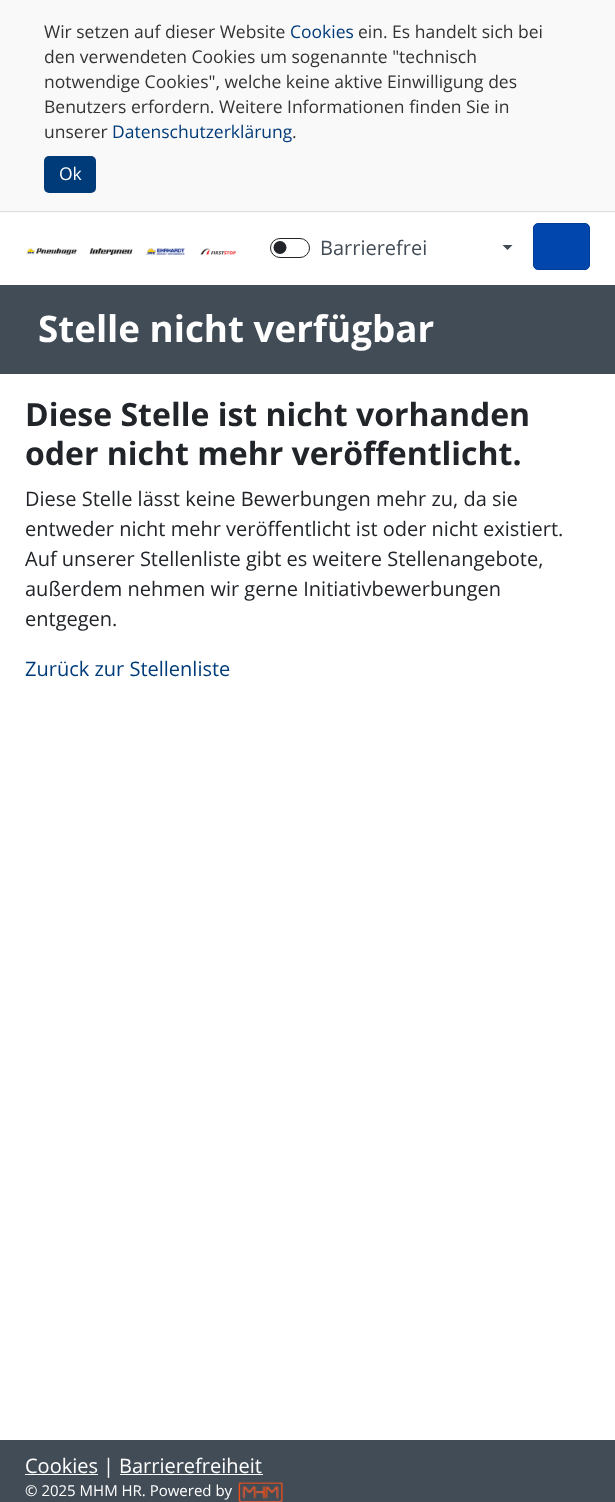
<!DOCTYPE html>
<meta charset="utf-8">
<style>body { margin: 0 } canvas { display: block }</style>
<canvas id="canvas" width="615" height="1502"></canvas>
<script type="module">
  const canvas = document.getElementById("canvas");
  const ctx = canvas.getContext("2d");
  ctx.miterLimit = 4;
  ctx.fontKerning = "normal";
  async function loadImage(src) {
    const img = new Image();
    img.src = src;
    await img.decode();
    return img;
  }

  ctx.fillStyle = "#ffffff";
  ctx.fillRect(0, 0, 615, 1502);
  ctx.fillStyle = "#f9f9f9";
  ctx.fillRect(0, 0, 615, 213);
  ctx.fillStyle = "#dddddd";
  ctx.fillRect(0, 211, 615, 1);
  ctx.font = "17.5px Open Sans";
  ctx.fillStyle = "#333333";
  ctx.fillText("Wir setzen auf dieser Website", 44, 38);
  ctx.fillStyle = "#003b79";
  ctx.fillText("Cookies", 290, 38);
  ctx.fillStyle = "#333333";
  ctx.fillText("ein. Es handelt sich bei", 358, 38);
  ctx.fillText("den verwendeten Cookies um sogenannte \"technisch", 44, 63);
  ctx.fillText("notwendige Cookies\", welche keine aktive Einwilligung des", 44, 88);
  ctx.fillText("Benutzers erfordern. Weitere Informationen finden Sie in", 44, 113);
  ctx.fillText("unserer", 44, 138);
  ctx.fillStyle = "#003b79";
  ctx.fillText("Datenschutzerklärung", 112, 138);
  ctx.fillStyle = "#333333";
  ctx.fillText(".", 292, 138);
  ctx.fillStyle = "#003b79";
  ctx.beginPath();
  ctx.roundRect(44, 156, 52, 37, 5);
  ctx.fill();
  ctx.fillStyle = "#ffffff";
  ctx.fillText("Ok", 59, 180);
  ctx.drawImage(await loadImage("img1.png"), 26, 247, 210, 8);
  ctx.fillStyle = "#212529";
  ctx.beginPath();
  ctx.arc(280, 247.5, 6.5, 0, Math.PI * 2);
  ctx.fill();
  ctx.beginPath();
  ctx.roundRect(270.5, 238.5, 39, 19, 9.5);
  ctx.strokeStyle = "#212529";
  ctx.stroke();
  ctx.font = "20px Open Sans";
  ctx.fillStyle = "#424c56";
  ctx.fillText("Barrierefrei", 320, 255);
  ctx.beginPath();
  ctx.moveTo(502.5, 245);
  ctx.lineTo(512.5, 245);
  ctx.lineTo(507.5, 250);
  ctx.closePath();
  ctx.fill();
  ctx.fillStyle = "#0046ad";
  ctx.beginPath();
  ctx.roundRect(533.5, 223.5, 56, 46, 4.5);
  ctx.fill();
  ctx.strokeStyle = "#003c94";
  ctx.stroke();
  ctx.fillStyle = "#424c56";
  ctx.fillRect(0, 285, 615, 89);
  ctx.font = "bold 36.75px Open Sans";
  ctx.fillStyle = "#ffffff";
  ctx.fillText("Stelle nicht verfügbar", 38, 342);
  ctx.font = "bold 32px Open Sans";
  ctx.fillStyle = "#212529";
  ctx.fillText("Diese Stelle ist nicht vorhanden", 25, 426);
  ctx.fillText("oder nicht mehr veröffentlicht.", 25, 465);
  ctx.font = "20px Open Sans";
  ctx.fillText("Diese Stelle lässt keine Bewerbungen mehr zu, da sie", 25, 506);
  ctx.fillText("entweder nicht mehr veröffentlicht ist oder nicht existiert.", 25, 536);
  ctx.fillText("Auf unserer Stellenliste gibt es weitere Stellenangebote,", 25, 566);
  ctx.fillText("außerdem nehmen wir gerne Initiativbewerbungen", 25, 596);
  ctx.fillText("entgegen.", 25, 626);
  ctx.fillStyle = "#003b79";
  ctx.fillText("Zurück zur Stellenliste", 25, 676);
  ctx.fillStyle = "#424c56";
  ctx.fillRect(0, 1440, 615, 62);
  ctx.fillStyle = "#ffffff";
  ctx.fillText("Cookies", 25, 1473);
  ctx.fillRect(25, 1474, 73, 1);
  ctx.fillStyle = "#f8f9fa";
  ctx.fillText("|", 103, 1473);
  ctx.fillStyle = "#ffffff";
  ctx.fillText("Barrierefreiheit", 119, 1473);
  ctx.fillRect(120, 1474, 143, 1);
  ctx.font = "15px Open Sans";
  ctx.fillText("© 2025 MHM HR. Powered by", 25, 1496);
  ctx.drawImage(await loadImage("img2.png"), 238, 1482, 45, 20);
</script>
